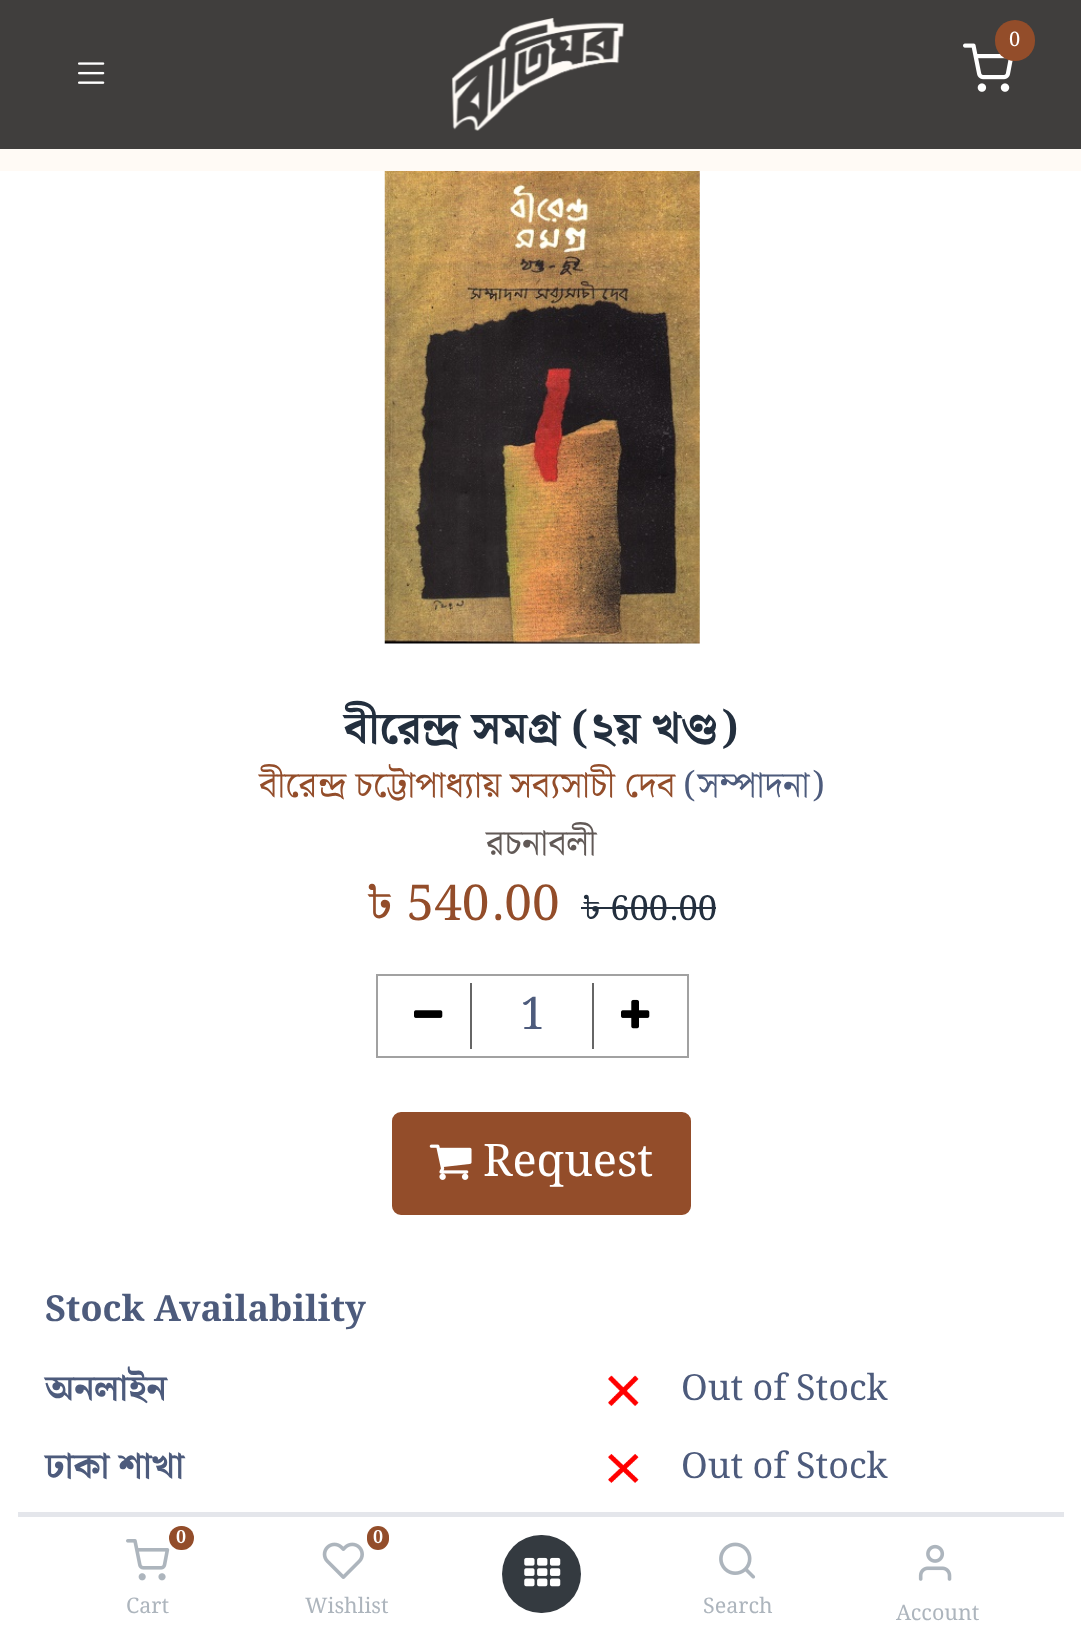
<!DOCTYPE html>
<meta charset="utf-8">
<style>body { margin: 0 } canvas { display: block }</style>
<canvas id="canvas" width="1081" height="1641"></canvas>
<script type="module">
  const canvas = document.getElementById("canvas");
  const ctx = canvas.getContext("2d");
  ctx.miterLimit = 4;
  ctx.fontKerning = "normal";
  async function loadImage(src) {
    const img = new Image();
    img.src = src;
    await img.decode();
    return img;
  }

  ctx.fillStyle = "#fffaf5";
  ctx.fillRect(0, 0, 1081, 1641);
  ctx.fillStyle = "#403e3d";
  ctx.fillRect(0, 0, 1081, 149);
  ctx.drawImage(await loadImage("img1.png"), 451, 18, 173, 113);
  ctx.drawImage(await loadImage("img2.png"), 963, 43, 50, 49);
  ctx.fillStyle = "#934d2a";
  ctx.beginPath();
  ctx.roundRect(995, 20, 40, 41, 20);
  ctx.fill();
  ctx.font = "20px Noto Serif Bengali";
  ctx.fillStyle = "#ffffff";
  ctx.fillText("0", 1009, 46);
  ctx.drawImage(await loadImage("img3.png"), 78, 62, 27, 22);
  ctx.fillRect(0, 171, 1081, 1377);
  ctx.drawImage(await loadImage("img4.png"), 384, 171, 316, 473);
  ctx.font = "bold 45px Noto Serif Bengali";
  ctx.fillStyle = "#232f3e";
  ctx.fillText("বীরেন্দ্র সমগ্র (২য় খণ্ড)", 344, 743);
  ctx.font = "36px Noto Serif Bengali";
  ctx.fillStyle = "#934d2a";
  ctx.fillText("বীরেন্দ্র চট্টোপাধ্যায়", 259, 797);
  ctx.fillText("সব্যসাচী দেব", 510, 797);
  ctx.fillStyle = "#4d5b7c";
  ctx.fillText("(সম্পাদনা)", 684, 797);
  ctx.fillStyle = "#615956";
  ctx.fillText("রচনাবলী", 486, 855);
  ctx.font = "49.5px Noto Serif Bengali";
  ctx.fillStyle = "#934d2a";
  ctx.fillText("৳ 540.00", 366, 920);
  ctx.font = "34.5px Noto Serif Bengali";
  ctx.fillStyle = "#232f3e";
  ctx.fillText("৳ 600.00", 582, 920);
  ctx.fillRect(581, 907, 135, 2);
  ctx.strokeStyle = "#a1a1a1";
  ctx.lineWidth = 2;
  ctx.strokeRect(377, 975, 311, 82);
  ctx.drawImage(await loadImage("img5.png"), 414, 1010, 29, 8);
  ctx.fillStyle = "#666666";
  ctx.fillRect(592, 983, 2, 66);
  ctx.fillRect(470, 983, 2, 66);
  ctx.font = "45px Noto Serif Bengali";
  ctx.fillStyle = "#4d5b7c";
  ctx.fillText("1", 520, 1029);
  ctx.drawImage(await loadImage("img6.png"), 621, 999, 29, 30);
  ctx.fillStyle = "#934d2a";
  ctx.beginPath();
  ctx.roundRect(393, 1113, 297, 101, 8);
  ctx.fill();
  ctx.strokeStyle = "#934d2a";
  ctx.stroke();
  ctx.drawImage(await loadImage("img7.png"), 429, 1144, 43, 36);
  ctx.fillStyle = "#ffffff";
  ctx.fillText("Request", 483, 1176);
  ctx.font = "bold 36px Noto Serif Bengali";
  ctx.fillStyle = "#4d5b7c";
  ctx.fillText("Stock Availability", 45, 1321);
  ctx.fillText("অনলাইন", 45, 1400);
  ctx.drawImage(await loadImage("img8.png"), 608, 1375, 31, 31);
  ctx.font = "36px Noto Serif Bengali";
  ctx.fillText("Out of Stock", 681, 1400);
  ctx.font = "bold 36px Noto Serif Bengali";
  ctx.fillText("ঢাকা শাখা", 45, 1478);
  ctx.drawImage(await loadImage("img9.png"), 608, 1454, 31, 29);
  ctx.font = "36px Noto Serif Bengali";
  ctx.fillText("Out of Stock", 681, 1478);
  ctx.fillStyle = "#ffffff";
  ctx.beginPath();
  ctx.moveTo(36, 1512);
  ctx.lineTo(1046, 1512);
  ctx.bezierCurveTo(1066, 1512, 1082, 1528, 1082, 1548);
  ctx.lineTo(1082, 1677);
  ctx.lineTo(0, 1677);
  ctx.lineTo(0, 1548);
  ctx.bezierCurveTo(0, 1528, 16, 1512, 36, 1512);
  ctx.closePath();
  ctx.fill();
  ctx.fillStyle = "#e4e6eb";
  ctx.fillRect(18, 1512, 1046, 5);
  ctx.drawImage(await loadImage("img10.png"), 126, 1539, 44, 42);
  ctx.fillStyle = "#934d2a";
  ctx.beginPath();
  ctx.roundRect(169, 1526, 25, 24, 12);
  ctx.fill();
  ctx.font = "bold 18px Noto Serif Bengali";
  ctx.fillStyle = "#ffffff";
  ctx.fillText("0", 176, 1543);
  ctx.font = "21.5px Noto Serif Bengali";
  ctx.fillStyle = "#adb5bd";
  ctx.fillText("Cart", 126, 1613);
  ctx.fillStyle = "#934d2a";
  ctx.beginPath();
  ctx.roundRect(367, 1526, 22, 24, 11);
  ctx.fill();
  ctx.font = "bold 18px Noto Serif Bengali";
  ctx.fillStyle = "#ffffff";
  ctx.fillText("0", 373, 1543);
  ctx.drawImage(await loadImage("img11.png"), 322, 1542, 42, 37);
  ctx.font = "21.5px Noto Serif Bengali";
  ctx.fillStyle = "#adb5bd";
  ctx.fillText("Wishlist", 305, 1613);
  ctx.fillStyle = "#343a40";
  ctx.beginPath();
  ctx.roundRect(502, 1535, 79, 78, 39);
  ctx.fill();
  ctx.drawImage(await loadImage("img12.png"), 524, 1557, 37, 30);
  ctx.drawImage(await loadImage("img13.png"), 719, 1542, 37, 37);
  ctx.fillStyle = "#adb5bd";
  ctx.fillText("Search", 703, 1613);
  ctx.drawImage(await loadImage("img14.png"), 918, 1544, 34, 37);
  ctx.fillText("Account", 896, 1620);
</script>
